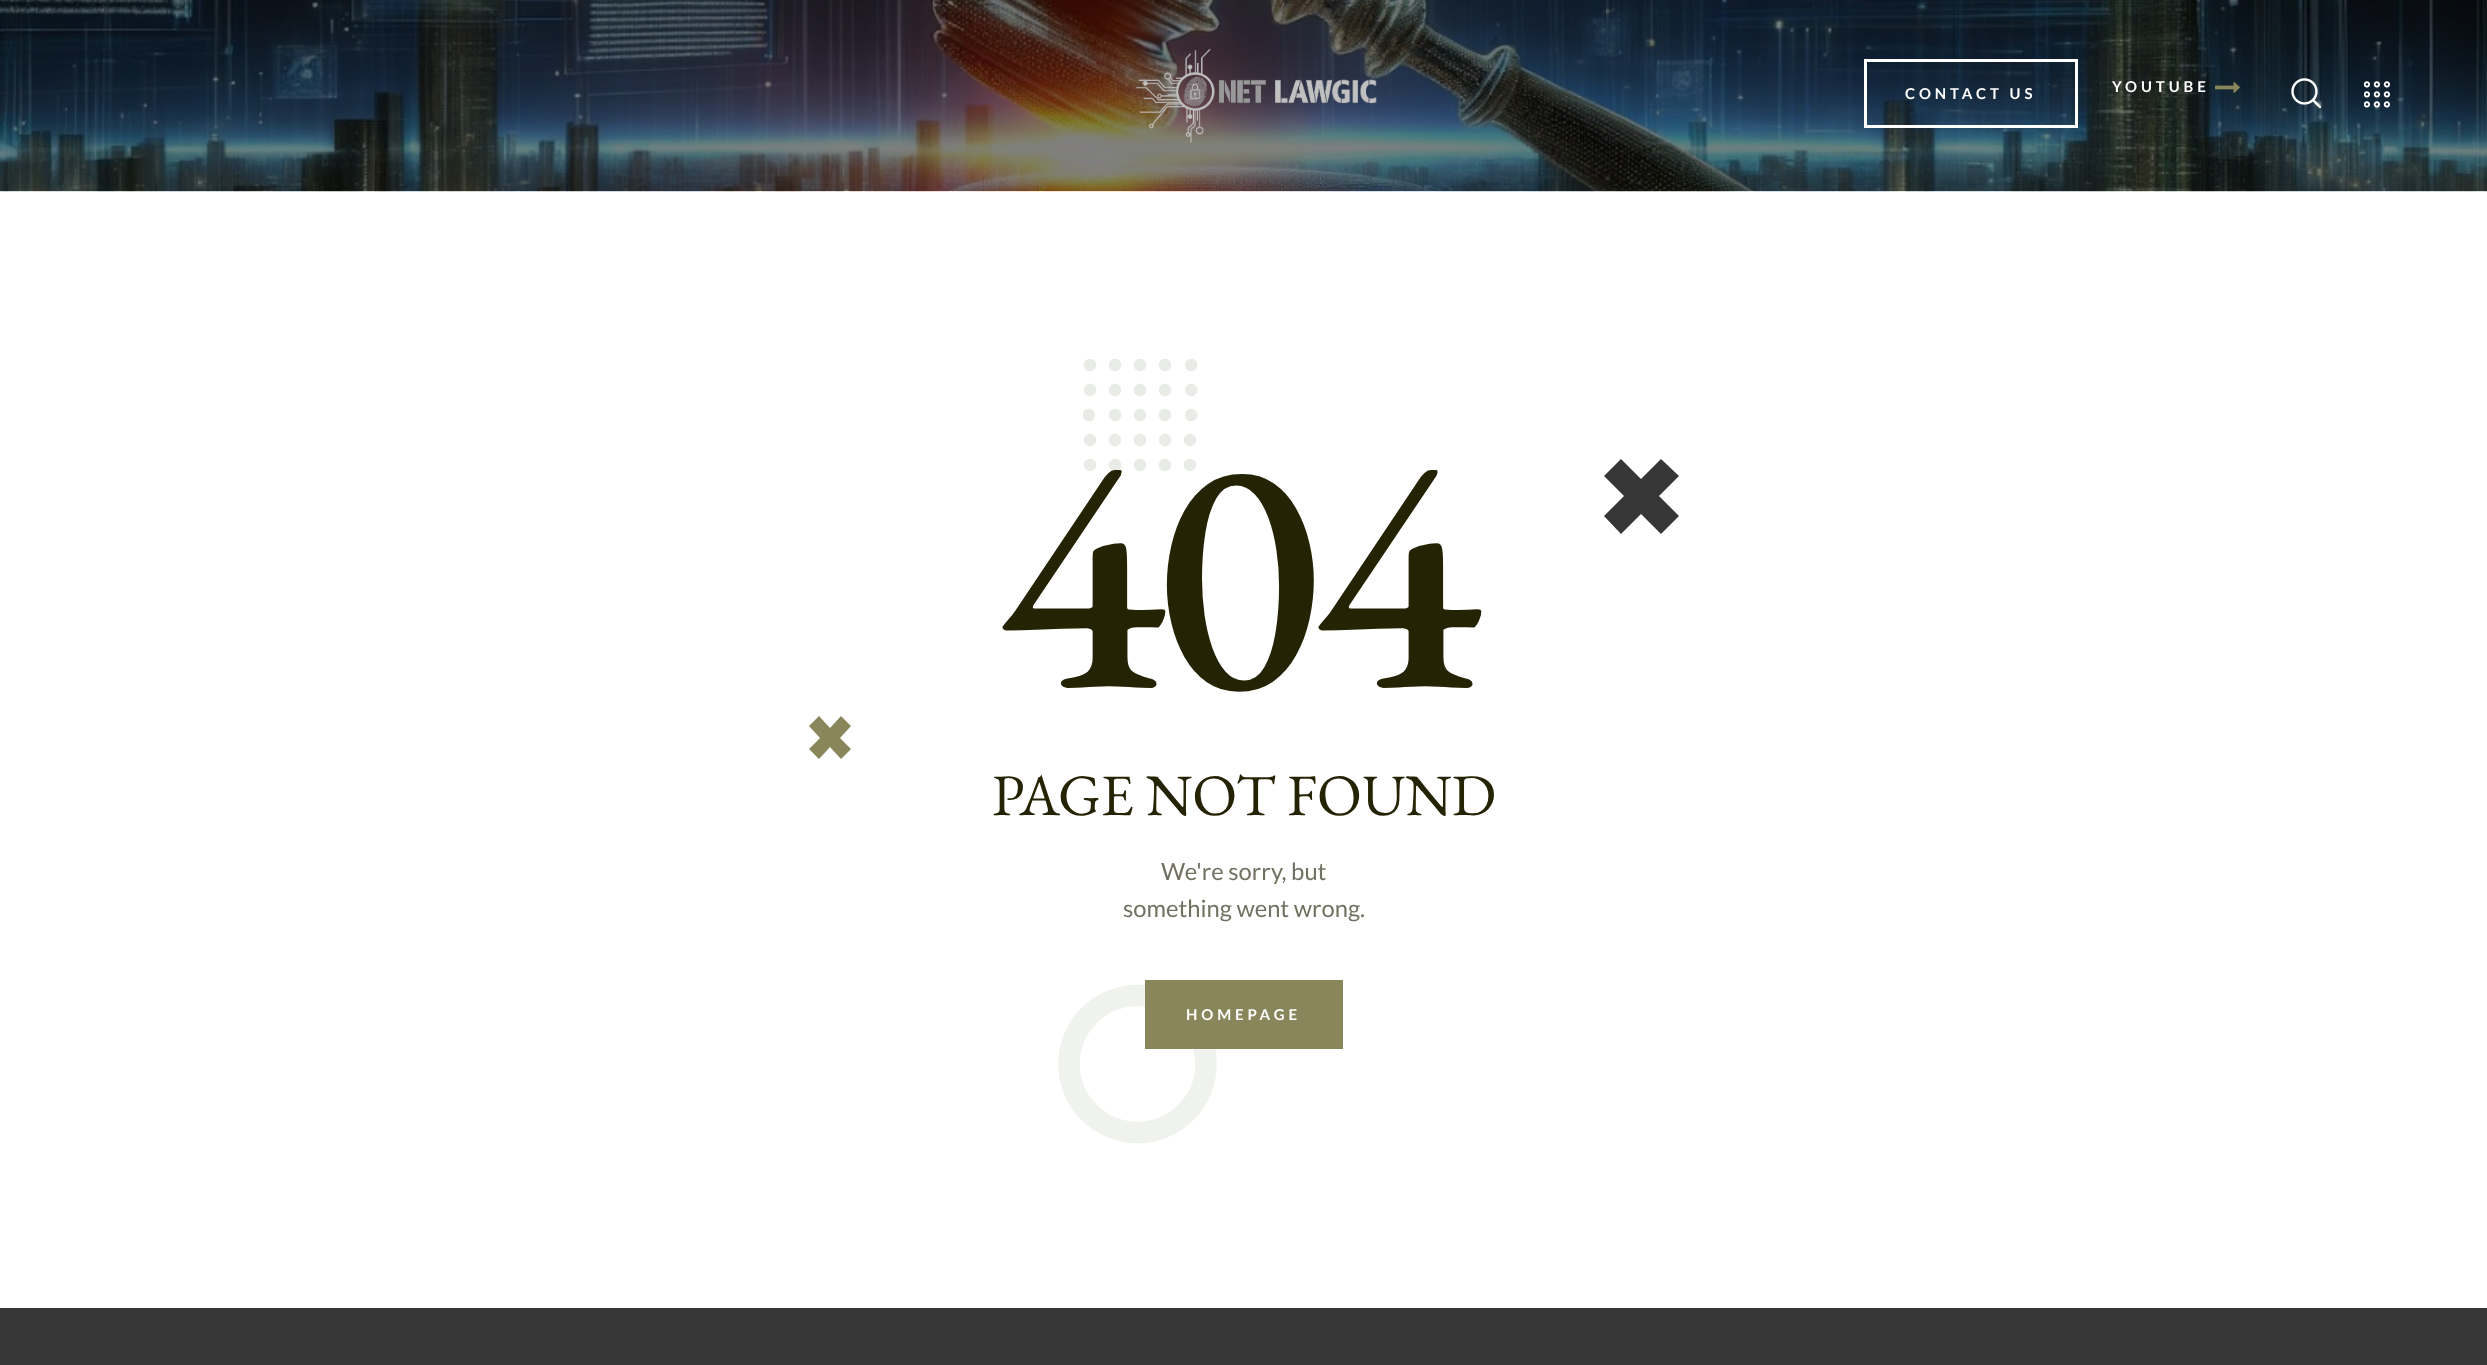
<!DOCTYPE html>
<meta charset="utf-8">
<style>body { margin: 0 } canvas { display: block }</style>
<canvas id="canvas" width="2487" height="1365"></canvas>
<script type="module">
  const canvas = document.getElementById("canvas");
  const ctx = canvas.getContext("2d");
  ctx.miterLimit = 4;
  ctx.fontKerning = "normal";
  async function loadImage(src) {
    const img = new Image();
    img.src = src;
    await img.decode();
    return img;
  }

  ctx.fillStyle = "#ffffff";
  ctx.fillRect(0, 0, 2487, 1365);
  ctx.drawImage(await loadImage("img1.png"), 0, 0, 2487, 192);
  ctx.drawImage(await loadImage("img2.png"), 1136, 48, 241, 95);
  ctx.strokeStyle = "#ffffff";
  ctx.lineWidth = 3;
  ctx.strokeRect(1865.5, 60.5, 211, 66);
  ctx.letterSpacing = "3.9px";
  ctx.font = "bold 15px Lato";
  ctx.fillText("CONTACT US", 1905, 99);
  ctx.fillText("YOUTUBE", 2112, 92);
  ctx.drawImage(await loadImage("img3.png"), 2215, 82, 25, 11);
  ctx.drawImage(await loadImage("img4.png"), 2291, 78, 31, 31);
  ctx.drawImage(await loadImage("img5.png"), 2364, 81, 26, 27);
  ctx.drawImage(await loadImage("img6.png"), 1083, 359, 115, 112);
  ctx.fillStyle = "#373737";
  ctx.beginPath();
  ctx.moveTo(1604, 516);
  ctx.lineTo(1624, 496);
  ctx.lineTo(1604, 476);
  ctx.lineTo(1621, 459);
  ctx.lineTo(1641, 479);
  ctx.lineTo(1661, 459);
  ctx.lineTo(1679, 476);
  ctx.lineTo(1659, 496);
  ctx.lineTo(1679, 516);
  ctx.lineTo(1661, 534);
  ctx.lineTo(1641, 514);
  ctx.lineTo(1621, 534);
  ctx.closePath();
  ctx.fill();
  ctx.fillStyle = "#88865a";
  ctx.beginPath();
  ctx.moveTo(809, 749);
  ctx.lineTo(820, 738);
  ctx.lineTo(809, 726);
  ctx.lineTo(819, 716);
  ctx.lineTo(830, 728);
  ctx.lineTo(841, 716);
  ctx.lineTo(851, 726);
  ctx.lineTo(840, 738);
  ctx.lineTo(851, 749);
  ctx.lineTo(841, 759);
  ctx.lineTo(830, 747);
  ctx.lineTo(819, 759);
  ctx.closePath();
  ctx.fill();
  ctx.beginPath();
  ctx.arc(1137.5, 1064, 68.5, 0, Math.PI * 2);
  ctx.strokeStyle = "#f0f2ee";
  ctx.lineWidth = 21.6;
  ctx.stroke();
  ctx.letterSpacing = "-10px";
  ctx.font = "500 338px EB Garamond";
  ctx.fillStyle = "#242304";
  ctx.fillText("404", 996, 687);
  ctx.letterSpacing = "0px";
  ctx.font = "58.75px EB Garamond";
  ctx.fillText("PAGE NOT FOUND", 992, 815);
  ctx.font = "23.75px Lato";
  ctx.fillStyle = "#717061";
  ctx.fillText("We're sorry, but", 1161, 880);
  ctx.fillText("something went wrong.", 1123, 917);
  ctx.fillStyle = "#88865a";
  ctx.fillRect(1145, 980, 198, 69);
  ctx.letterSpacing = "3.9px";
  ctx.font = "bold 15px Lato";
  ctx.fillStyle = "#ffffff";
  ctx.fillText("HOMEPAGE", 1186, 1020);
  ctx.fillStyle = "#373737";
  ctx.fillRect(0, 1308, 2487, 57);
</script>
